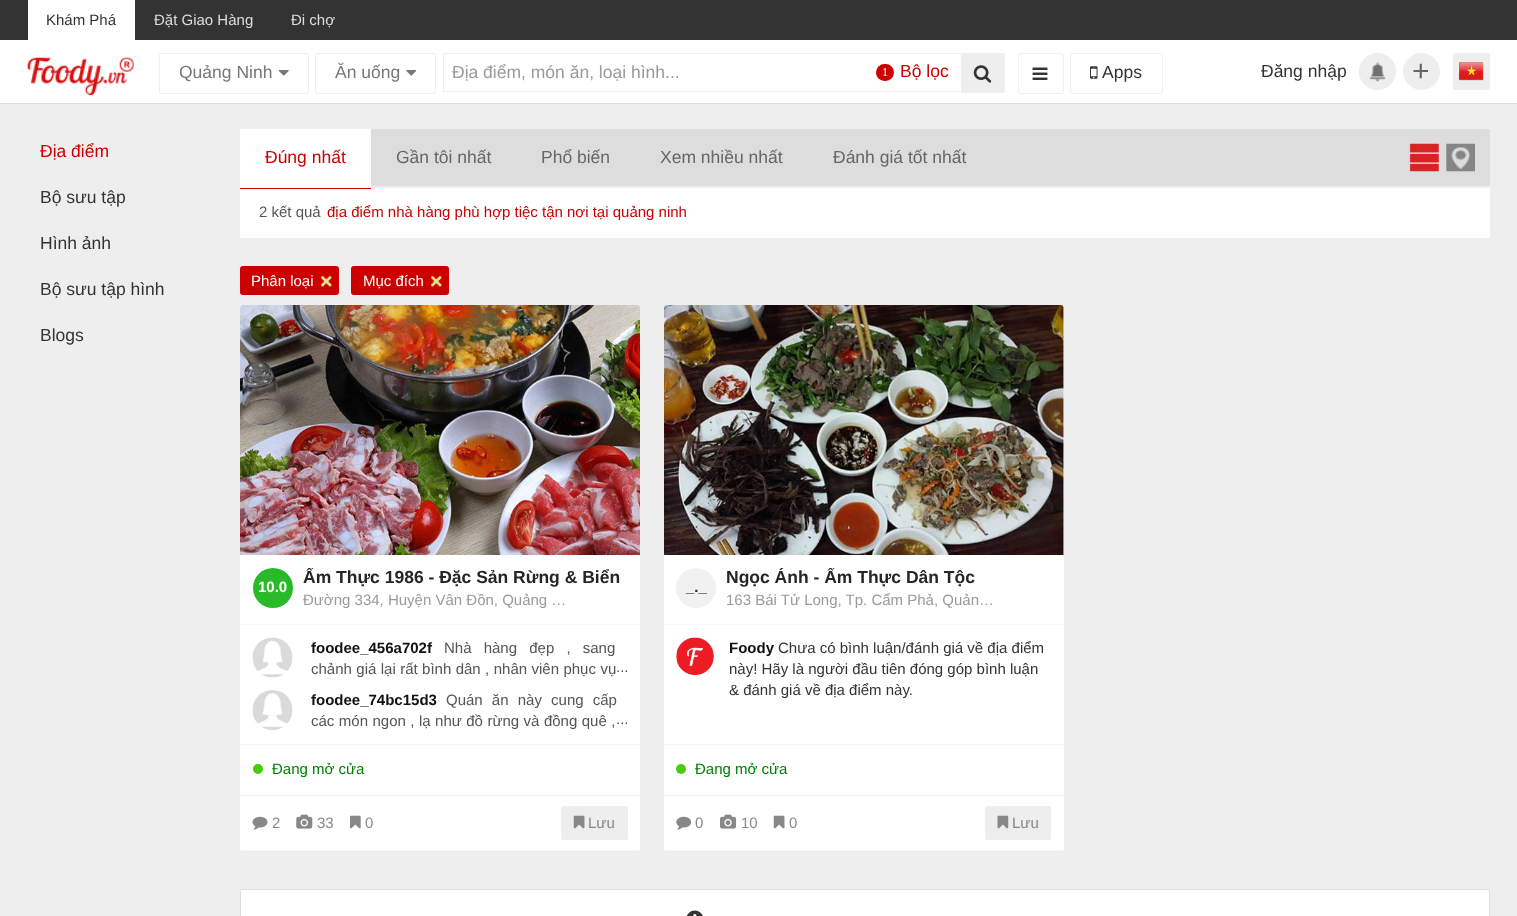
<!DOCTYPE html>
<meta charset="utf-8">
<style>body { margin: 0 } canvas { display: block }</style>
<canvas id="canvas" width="1517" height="916"></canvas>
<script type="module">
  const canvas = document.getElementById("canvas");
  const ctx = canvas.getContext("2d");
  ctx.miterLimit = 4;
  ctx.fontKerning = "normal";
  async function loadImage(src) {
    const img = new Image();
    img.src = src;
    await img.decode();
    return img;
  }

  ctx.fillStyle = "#eeeeee";
  ctx.fillRect(0, 0, 1517, 916);
  ctx.fillStyle = "#333333";
  ctx.fillRect(0, 0, 1517, 40);
  ctx.fillStyle = "#ffffff";
  ctx.fillRect(28, 0, 107, 40);
  ctx.font = "15px Liberation Sans";
  ctx.fillStyle = "#333333";
  ctx.fillText("Khám Phá", 46, 25);
  ctx.fillStyle = "#dddddd";
  ctx.fillText("Đặt Giao Hàng", 154, 25);
  ctx.fillText("Đi chợ", 291, 25);
  ctx.fillStyle = "#ffffff";
  ctx.fillRect(0, 40, 1517, 63);
  ctx.fillStyle = "#dddddd";
  ctx.fillRect(0, 103, 1517, 1);
  ctx.drawImage(await loadImage("img1.png"), 27, 57, 107, 38);
  ctx.beginPath();
  ctx.roundRect(159.5, 53.5, 149, 40, 2);
  ctx.strokeStyle = "#eeeeee";
  ctx.stroke();
  ctx.font = "17.5px Liberation Sans";
  ctx.fillStyle = "#777777";
  ctx.fillText("Quảng Ninh", 179, 78);
  ctx.drawImage(await loadImage("img2.png"), 278, 70, 11, 6);
  ctx.beginPath();
  ctx.roundRect(315.5, 53.5, 120, 40, 2);
  ctx.stroke();
  ctx.fillText("Ăn uống", 335, 78);
  ctx.drawImage(await loadImage("img3.png"), 406, 70, 11, 6);
  ctx.fillStyle = "#eeeeee";
  ctx.fillRect(443, 53, 518, 1);
  ctx.fillRect(443, 91, 518, 1);
  ctx.fillRect(443, 53, 1, 40);
  ctx.fillStyle = "#9a9a9a";
  ctx.fillText("Địa điểm, món ăn, loại hình...", 452, 78);
  ctx.fillStyle = "#cc0000";
  ctx.beginPath();
  ctx.roundRect(876, 64, 18, 17, 8.5);
  ctx.fill();
  ctx.font = "12px Liberation Serif";
  ctx.fillStyle = "#ffffff";
  ctx.fillText("1", 882, 76);
  ctx.font = "17.5px Liberation Sans";
  ctx.fillStyle = "#cc0000";
  ctx.fillText("Bộ lọc", 900, 77);
  ctx.fillStyle = "#eeeeee";
  ctx.beginPath();
  ctx.roundRect(961.5, 53.5, 43, 39, [0, 2, 2, 0]);
  ctx.fill();
  ctx.stroke();
  ctx.drawImage(await loadImage("img4.png"), 973, 65, 19, 18);
  ctx.beginPath();
  ctx.roundRect(1018.5, 53.5, 45, 40, 2);
  ctx.stroke();
  ctx.drawImage(await loadImage("img5.png"), 1032, 67, 16, 13);
  ctx.beginPath();
  ctx.roundRect(1070.5, 53.5, 92, 40, 2);
  ctx.stroke();
  ctx.drawImage(await loadImage("img6.png"), 1090, 66, 8, 13);
  ctx.fillStyle = "#333333";
  ctx.fillText("Apps", 1102, 78);
  ctx.fillText("Đăng nhập", 1261, 77);
  ctx.fillStyle = "#eeeeee";
  ctx.beginPath();
  ctx.arc(1377.5, 71.5, 18.5, 0, Math.PI * 2);
  ctx.fill();
  ctx.drawImage(await loadImage("img7.png"), 1369, 62, 17, 20);
  ctx.beginPath();
  ctx.arc(1377.5, 71.5, 18, 0, Math.PI * 2);
  ctx.stroke();
  ctx.beginPath();
  ctx.arc(1421.5, 71.5, 18, 0, Math.PI * 2);
  ctx.fill();
  ctx.stroke();
  ctx.font = "30px Liberation Sans";
  ctx.fillStyle = "#666666";
  ctx.fillText("+", 1412, 81);
  ctx.fillStyle = "#eeeeee";
  ctx.beginPath();
  ctx.roundRect(1453, 53, 37, 37, 2.5);
  ctx.fill();
  ctx.drawImage(await loadImage("img8.png"), 1459, 62, 25, 19);
  ctx.font = "17.5px Liberation Sans";
  ctx.fillStyle = "#cc0000";
  ctx.fillText("Địa điểm", 40, 157);
  ctx.fillStyle = "#333333";
  ctx.fillText("Bộ sưu tập", 40, 203);
  ctx.fillText("Hình ảnh", 40, 249);
  ctx.fillText("Bộ sưu tập hình", 40, 295);
  ctx.fillText("Blogs", 40, 341);
  ctx.fillStyle = "#dddddd";
  ctx.fillRect(371, 129, 1119, 57);
  ctx.fillStyle = "#ffffff";
  ctx.fillRect(240, 129, 131, 59);
  ctx.fillRect(240, 188, 1250, 50);
  ctx.fillStyle = "#cc0000";
  ctx.fillRect(240, 188, 131, 1);
  ctx.fillText("Đúng nhất", 265, 163);
  ctx.fillStyle = "#666666";
  ctx.fillText("Gần tôi nhất", 396, 163);
  ctx.fillText("Phổ biến", 541, 163);
  ctx.fillText("Xem nhiều nhất", 660, 163);
  ctx.fillText("Đánh giá tốt nhất", 833, 163);
  ctx.drawImage(await loadImage("img9.png"), 1409, 143, 30, 29);
  ctx.drawImage(await loadImage("img10.png"), 1446, 143, 29, 29);
  ctx.font = "15px Liberation Sans";
  ctx.fillStyle = "#555555";
  ctx.fillText("2 kết quả", 259, 217);
  ctx.fillStyle = "#cc0000";
  ctx.fillText("địa điểm nhà hàng phù hợp tiệc tận nơi tại quảng ninh", 327, 217);
  ctx.beginPath();
  ctx.roundRect(240.5, 266.5, 98, 28, 2);
  ctx.fill();
  ctx.strokeStyle = "#cc0000";
  ctx.stroke();
  ctx.fillStyle = "#ffffff";
  ctx.fillText("Phân loại", 251, 286);
  ctx.drawImage(await loadImage("img11.png"), 321, 276, 11, 11);
  ctx.fillStyle = "#cc0000";
  ctx.beginPath();
  ctx.roundRect(351.5, 266.5, 97, 28, 2);
  ctx.fill();
  ctx.stroke();
  ctx.fillStyle = "#ffffff";
  ctx.fillText("Mục đích", 363, 286);
  ctx.drawImage(await loadImage("img12.png"), 431, 276, 11, 11);
  ctx.beginPath();
  ctx.roundRect(240, 305, 400, 546, 2.5);
  ctx.fill();
  ctx.fillStyle = "#f6f6f6";
  ctx.fillRect(241, 850, 398, 1);
  ctx.fillStyle = "#eeeeee";
  ctx.beginPath();
  ctx.moveTo(242, 305);
  ctx.bezierCurveTo(241, 305, 240, 306, 240, 308);
  ctx.lineTo(240, 555);
  ctx.lineTo(640, 555);
  ctx.lineTo(640, 308);
  ctx.bezierCurveTo(640, 306, 639, 305, 638, 305);
  ctx.closePath();
  ctx.fill();
  ctx.drawImage(await loadImage("img13.png"), 240, 305, 400, 250);
  ctx.fillStyle = "#f9f9f9";
  ctx.fillRect(240, 624, 400, 1);
  ctx.fillStyle = "#29ba29";
  ctx.beginPath();
  ctx.arc(273, 588, 20, 0, Math.PI * 2);
  ctx.fill();
  ctx.font = "bold 15px Liberation Sans";
  ctx.fillStyle = "#ffffff";
  ctx.fillText("10.0", 258, 592);
  ctx.save();
  ctx.beginPath();
  ctx.rect(303, 568, 325, 20);
  ctx.clip();
  ctx.font = "bold 17.5px Liberation Sans";
  ctx.fillStyle = "#262626";
  ctx.fillText("Ẩm Thực 1986 - Đặc Sản Rừng & Biển", 303, 583);
  ctx.restore();
  ctx.font = "15px Liberation Sans";
  ctx.fillStyle = "#9a9a9a";
  ctx.fillText("Đường 334, Huyện Vân Đồn, Quảng …", 303, 605);
  ctx.fillStyle = "#f5f5f5";
  ctx.fillRect(240, 744, 400, 1);
  ctx.drawImage(await loadImage("img14.png"), 252, 637, 41, 41);
  ctx.font = "bold 15px Liberation Sans";
  ctx.fillStyle = "#111111";
  ctx.fillText("foodee_456a702f", 311, 653);
  ctx.wordSpacing = "8px";
  ctx.font = "15px Liberation Sans";
  ctx.fillStyle = "#555555";
  ctx.fillText("Nhà hàng đẹp , sang", 444, 653);
  ctx.wordSpacing = "0.25px";
  ctx.fillText("chảnh giá lại rất bình dân , nhân viên phục vụ", 311, 674);
  ctx.wordSpacing = "0px";
  ctx.fillText("...", 616, 672);
  ctx.drawImage(await loadImage("img15.png"), 252, 690, 41, 40);
  ctx.font = "bold 15px Liberation Sans";
  ctx.fillStyle = "#111111";
  ctx.fillText("foodee_74bc15d3", 311, 705);
  ctx.wordSpacing = "5px";
  ctx.font = "15px Liberation Sans";
  ctx.fillStyle = "#555555";
  ctx.fillText("Quán ăn này cung cấp", 446, 705);
  ctx.wordSpacing = "0.3px";
  ctx.fillText("các món ngon , lạ như đồ rừng và đồng quê ,", 311, 726);
  ctx.wordSpacing = "0px";
  ctx.fillText("...", 616, 724);
  ctx.fillStyle = "#eeeeee";
  ctx.fillRect(240, 795, 400, 1);
  ctx.fillStyle = "#46cd0e";
  ctx.beginPath();
  ctx.arc(258, 769, 5, 0, Math.PI * 2);
  ctx.fill();
  ctx.fillStyle = "#008000";
  ctx.fillText("Đang mở cửa", 272, 774);
  ctx.drawImage(await loadImage("img16.png"), 252, 816, 16, 14);
  ctx.fillStyle = "#888888";
  ctx.fillText("2", 272, 828);
  ctx.drawImage(await loadImage("img17.png"), 296, 814, 17, 15);
  ctx.fillText("33", 317, 828);
  ctx.drawImage(await loadImage("img18.png"), 350, 815, 11, 14);
  ctx.fillText("0", 365, 828);
  ctx.fillStyle = "#eeeeee";
  ctx.beginPath();
  ctx.roundRect(561, 806, 67, 34, 2.5);
  ctx.fill();
  ctx.drawImage(await loadImage("img19.png"), 573, 815, 12, 14);
  ctx.fillStyle = "#888888";
  ctx.fillText("Lưu", 588, 828);
  ctx.fillStyle = "#ffffff";
  ctx.beginPath();
  ctx.roundRect(664, 305, 400, 546, 2.5);
  ctx.fill();
  ctx.fillStyle = "#f6f6f6";
  ctx.fillRect(665, 850, 398, 1);
  ctx.fillStyle = "#eeeeee";
  ctx.beginPath();
  ctx.moveTo(666, 305);
  ctx.bezierCurveTo(665, 305, 664, 306, 664, 306);
  ctx.lineTo(664, 555);
  ctx.lineTo(1064, 555);
  ctx.lineTo(1064, 308);
  ctx.bezierCurveTo(1064, 306, 1063, 305, 1061, 305);
  ctx.closePath();
  ctx.fill();
  ctx.drawImage(await loadImage("img20.png"), 664, 305, 400, 250);
  ctx.fillStyle = "#f9f9f9";
  ctx.fillRect(664, 624, 400, 1);
  ctx.fillStyle = "#f1f1f1";
  ctx.beginPath();
  ctx.arc(696, 588, 20, 0, Math.PI * 2);
  ctx.fill();
  ctx.font = "bold 15px Liberation Sans";
  ctx.fillStyle = "#262626";
  ctx.fillText("_._", 686, 592);
  ctx.save();
  ctx.beginPath();
  ctx.rect(726, 568, 325, 20);
  ctx.clip();
  ctx.font = "bold 17.5px Liberation Sans";
  ctx.fillText("Ngọc Ánh - Ẩm Thực Dân Tộc", 726, 583);
  ctx.restore();
  ctx.font = "15px Liberation Sans";
  ctx.fillStyle = "#9a9a9a";
  ctx.fillText("163 Bái Tử Long, Tp. Cẩm Phả, Quản…", 726, 605);
  ctx.fillStyle = "#f5f5f5";
  ctx.fillRect(664, 744, 400, 1);
  ctx.drawImage(await loadImage("img21.png"), 676, 637, 38, 38);
  ctx.font = "bold 15px Liberation Sans";
  ctx.fillStyle = "#111111";
  ctx.fillText("Foody", 729, 653);
  ctx.font = "15px Liberation Sans";
  ctx.fillStyle = "#333333";
  ctx.fillText("Chưa có bình luận/đánh giá về địa điểm", 778, 653);
  ctx.fillText("này! Hãy là người đầu tiên đóng góp bình luận", 729, 674);
  ctx.fillText("& đánh giá về địa điểm này.", 729, 695);
  ctx.fillStyle = "#eeeeee";
  ctx.fillRect(664, 795, 400, 1);
  ctx.fillStyle = "#46cd0e";
  ctx.beginPath();
  ctx.arc(681, 769, 5, 0, Math.PI * 2);
  ctx.fill();
  ctx.fillStyle = "#008000";
  ctx.fillText("Đang mở cửa", 695, 774);
  ctx.drawImage(await loadImage("img22.png"), 676, 816, 16, 14);
  ctx.fillStyle = "#888888";
  ctx.fillText("0", 695, 828);
  ctx.drawImage(await loadImage("img23.png"), 720, 814, 17, 15);
  ctx.fillText("10", 741, 828);
  ctx.drawImage(await loadImage("img24.png"), 773, 815, 12, 14);
  ctx.fillText("0", 789, 828);
  ctx.fillStyle = "#eeeeee";
  ctx.beginPath();
  ctx.roundRect(985, 806, 66, 34, 2.5);
  ctx.fill();
  ctx.drawImage(await loadImage("img25.png"), 997, 815, 12, 14);
  ctx.fillStyle = "#888888";
  ctx.fillText("Lưu", 1012, 828);
  ctx.fillStyle = "#ffffff";
  ctx.beginPath();
  ctx.roundRect(240.5, 889.5, 1249, 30, 2);
  ctx.fill();
  ctx.strokeStyle = "#dddddd";
  ctx.stroke();
  ctx.drawImage(await loadImage("img26.png"), 686, 910, 17, 6);
</script>
